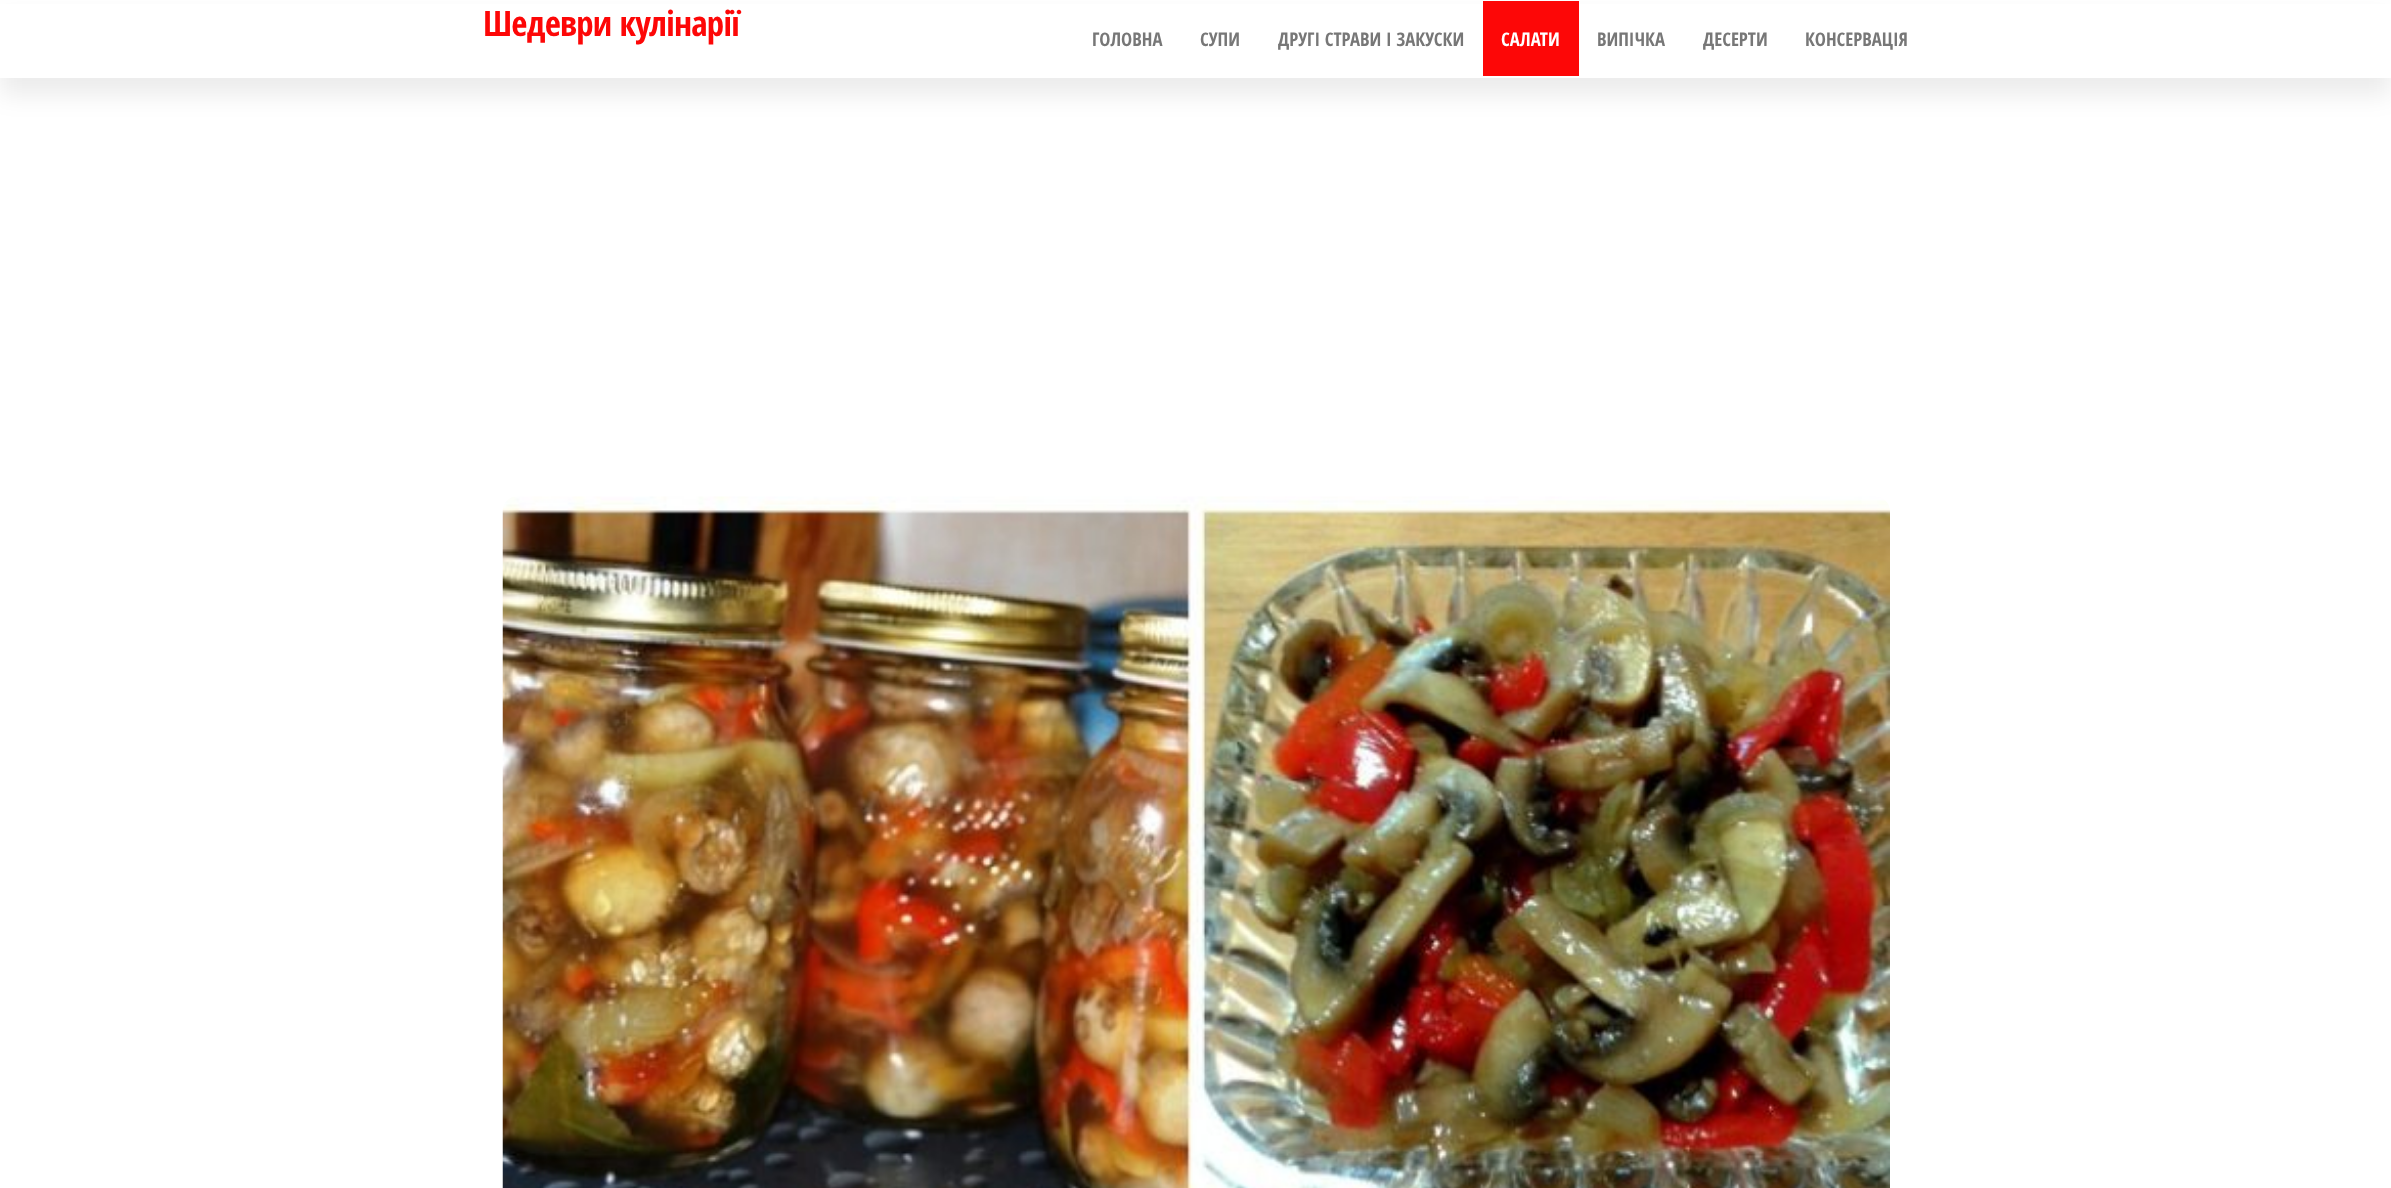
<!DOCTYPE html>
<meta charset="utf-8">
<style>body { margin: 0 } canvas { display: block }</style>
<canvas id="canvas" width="2391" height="1188"></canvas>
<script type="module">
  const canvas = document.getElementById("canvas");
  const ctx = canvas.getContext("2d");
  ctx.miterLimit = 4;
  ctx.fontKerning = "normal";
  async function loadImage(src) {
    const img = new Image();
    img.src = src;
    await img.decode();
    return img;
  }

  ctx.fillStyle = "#ffffff";
  ctx.fillRect(0, 0, 2391, 1188);
  ctx.fillStyle = "rgba(0, 0, 0, 0.08)";
  ctx.filter = "blur(12.5px)";
  ctx.beginPath();
  ctx.rect(0, 18, 2391, 77);
  ctx.fill();
  ctx.filter = "none";
  ctx.fillStyle = "#ffffff";
  ctx.fillRect(0, 4, 2391, 74);
  ctx.letterSpacing = "-0.75px";
  ctx.font = "bold 35px Open Sans Condensed";
  ctx.fillStyle = "#fd0707";
  ctx.fillText("Шедеври кулінарії", 483, 36);
  ctx.letterSpacing = "0px";
  ctx.font = "bold 18.75px Open Sans Condensed";
  ctx.fillStyle = "#777777";
  ctx.fillText("ГОЛОВНА", 1092, 46);
  ctx.fillText("СУПИ", 1200, 46);
  ctx.fillText("ДРУГІ СТРАВИ І ЗАКУСКИ", 1278, 46);
  ctx.fillStyle = "#fd0707";
  ctx.fillRect(1483, 1, 96, 75);
  ctx.fillStyle = "#ffffff";
  ctx.fillText("САЛАТИ", 1501, 46);
  ctx.fillStyle = "#777777";
  ctx.fillText("ВИПІЧКА", 1597, 46);
  ctx.fillText("ДЕСЕРТИ", 1703, 46);
  ctx.fillText("КОНСЕРВАЦІЯ", 1805, 46);
  ctx.drawImage(await loadImage("img1.png"), 502, 496, 1388, 692);
</script>
